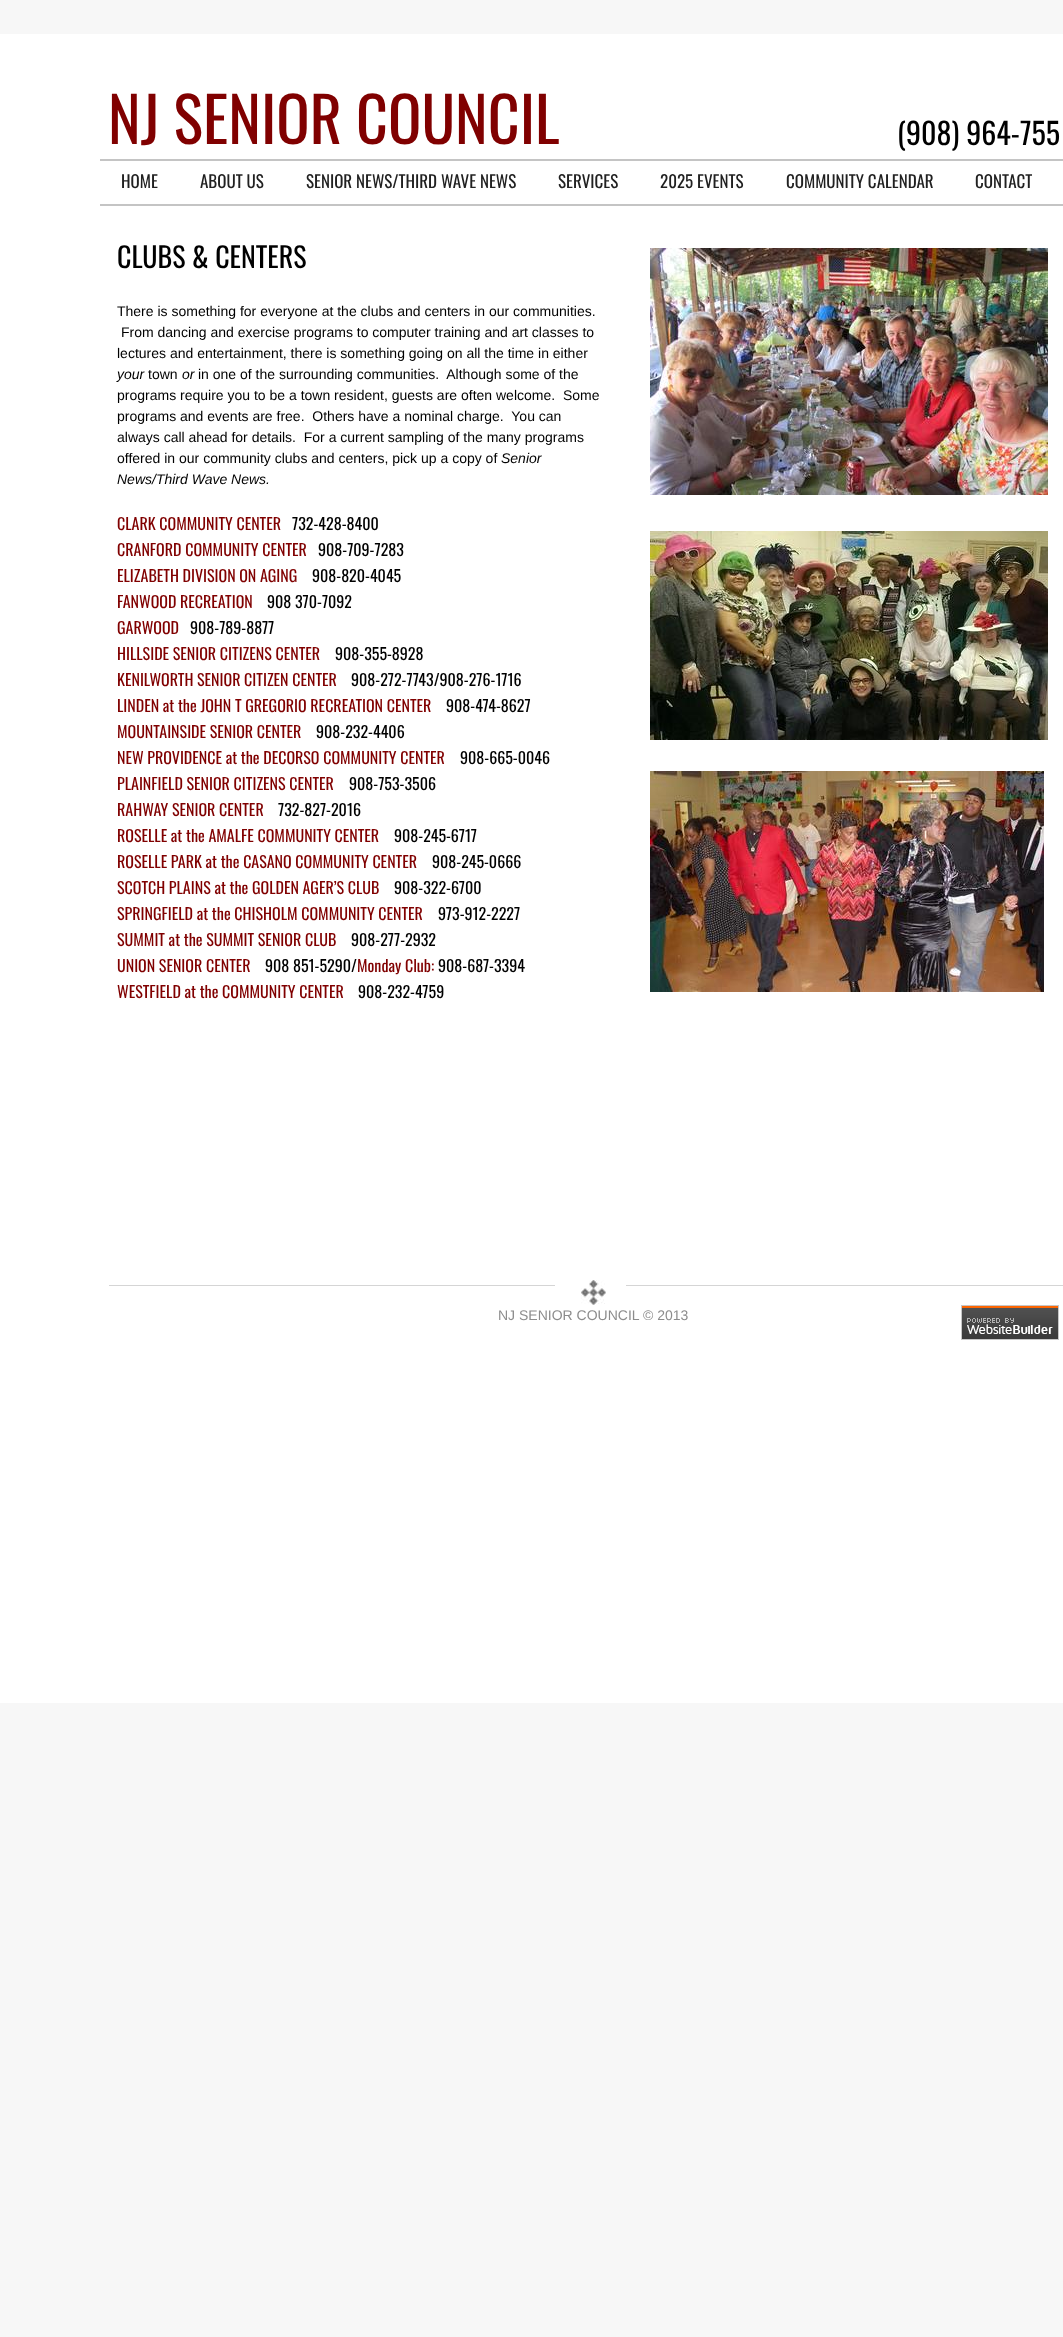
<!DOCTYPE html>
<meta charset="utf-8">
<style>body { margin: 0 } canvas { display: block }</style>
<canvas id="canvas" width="1063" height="2337"></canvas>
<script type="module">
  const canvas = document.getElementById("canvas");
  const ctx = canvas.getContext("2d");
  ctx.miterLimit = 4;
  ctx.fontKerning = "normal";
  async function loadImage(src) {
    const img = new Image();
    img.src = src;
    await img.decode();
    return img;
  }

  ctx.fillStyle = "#f7f7f7";
  ctx.fillRect(0, 0, 1063, 2337);
  ctx.fillStyle = "#ffffff";
  ctx.fillRect(0, 34, 1063, 1669);
  ctx.font = "62px Oswald";
  ctx.fillStyle = "#800000";
  ctx.fillText("NJ SENIOR COUNCIL", 108, 144);
  ctx.font = "30px Oswald";
  ctx.fillStyle = "#000000";
  ctx.fillText("(908) 964-755", 897, 145);
  ctx.fillStyle = "#c4c4c4";
  ctx.fillRect(100, 159, 963, 2);
  ctx.font = "17px Oswald";
  ctx.fillStyle = "#212121";
  ctx.fillText("HOME", 121, 188);
  ctx.fillText("ABOUT US", 200, 188);
  ctx.fillText("SENIOR NEWS/THIRD WAVE NEWS", 306, 188);
  ctx.fillText("SERVICES", 558, 188);
  ctx.fillText("2025 EVENTS", 660, 188);
  ctx.fillText("COMMUNITY CALENDAR", 786, 188);
  ctx.fillText("CONTACT", 975, 188);
  ctx.fillStyle = "#c4c4c4";
  ctx.fillRect(100, 204, 963, 2);
  ctx.font = "28px Oswald";
  ctx.fillStyle = "#000000";
  ctx.fillText("CLUBS & CENTERS", 117, 268);
  ctx.font = "14px Liberation Sans";
  ctx.fillText("There is something for everyone at the clubs and centers in our communities.", 117, 316);
  ctx.fillText("From dancing and exercise programs to computer training and art classes to", 121, 337);
  ctx.fillText("lectures and entertainment, there is something going on all the time in either", 117, 358);
  ctx.font = "italic 14px Liberation Sans";
  ctx.fillText("your", 117, 379);
  ctx.font = "14px Liberation Sans";
  ctx.fillText("town", 148, 379);
  ctx.font = "italic 14px Liberation Sans";
  ctx.fillText("or", 182, 379);
  ctx.font = "14px Liberation Sans";
  ctx.fillText("in one of the surrounding communities.  Although some of the", 198, 379);
  ctx.fillText("programs require you to be a town resident, guests are often welcome.  Some", 117, 400);
  ctx.fillText("programs and events are free.  Others have a nominal charge.  You can", 117, 421);
  ctx.fillText("always call ahead for details.  For a current sampling of the many programs", 117, 442);
  ctx.fillText("offered in our community clubs and centers, pick up a copy of", 117, 463);
  ctx.font = "italic 14px Liberation Sans";
  ctx.fillText("Senior", 501, 463);
  ctx.fillText("News/Third Wave News.", 117, 484);
  ctx.font = "16px Oswald";
  ctx.fillStyle = "#800000";
  ctx.fillText("CLARK COMMUNITY CENTER", 117, 530);
  ctx.fillStyle = "#000000";
  ctx.fillText("732-428-8400", 292, 530);
  ctx.fillStyle = "#800000";
  ctx.fillText("CRANFORD COMMUNITY CENTER", 117, 556);
  ctx.fillStyle = "#000000";
  ctx.fillText("908-709-7283", 318, 556);
  ctx.fillStyle = "#800000";
  ctx.fillText("ELIZABETH DIVISION ON AGING", 117, 582);
  ctx.fillStyle = "#000000";
  ctx.fillText("908-820-4045", 312, 582);
  ctx.fillStyle = "#800000";
  ctx.fillText("FANWOOD RECREATION", 117, 608);
  ctx.fillStyle = "#000000";
  ctx.fillText("908 370-7092", 267, 608);
  ctx.fillStyle = "#800000";
  ctx.fillText("GARWOOD", 117, 634);
  ctx.fillStyle = "#000000";
  ctx.fillText("908-789-8877", 190, 634);
  ctx.fillStyle = "#800000";
  ctx.fillText("HILLSIDE SENIOR CITIZENS CENTER", 117, 660);
  ctx.fillStyle = "#000000";
  ctx.fillText("908-355-8928", 335, 660);
  ctx.fillStyle = "#800000";
  ctx.fillText("KENILWORTH SENIOR CITIZEN CENTER", 117, 686);
  ctx.fillStyle = "#000000";
  ctx.fillText("908-272-7743/908-276-1716", 351, 686);
  ctx.fillStyle = "#800000";
  ctx.fillText("LINDEN at the JOHN T GREGORIO RECREATION CENTER", 117, 712);
  ctx.fillStyle = "#000000";
  ctx.fillText("908-474-8627", 446, 712);
  ctx.fillStyle = "#800000";
  ctx.fillText("MOUNTAINSIDE SENIOR CENTER", 117, 738);
  ctx.fillStyle = "#000000";
  ctx.fillText("908-232-4406", 316, 738);
  ctx.fillStyle = "#800000";
  ctx.fillText("NEW PROVIDENCE at the DECORSO COMMUNITY CENTER", 117, 764);
  ctx.fillStyle = "#000000";
  ctx.fillText("908-665-0046", 460, 764);
  ctx.fillStyle = "#800000";
  ctx.fillText("PLAINFIELD SENIOR CITIZENS CENTER", 117, 790);
  ctx.fillStyle = "#000000";
  ctx.fillText("908-753-3506", 349, 790);
  ctx.fillStyle = "#800000";
  ctx.fillText("RAHWAY SENIOR CENTER", 117, 816);
  ctx.fillStyle = "#000000";
  ctx.fillText("732-827-2016", 278, 816);
  ctx.fillStyle = "#800000";
  ctx.fillText("ROSELLE at the AMALFE COMMUNITY CENTER", 117, 842);
  ctx.fillStyle = "#000000";
  ctx.fillText("908-245-6717", 394, 842);
  ctx.fillStyle = "#800000";
  ctx.fillText("ROSELLE PARK at the CASANO COMMUNITY CENTER", 117, 868);
  ctx.fillStyle = "#000000";
  ctx.fillText("908-245-0666", 432, 868);
  ctx.fillStyle = "#800000";
  ctx.fillText("SCOTCH PLAINS at the GOLDEN AGER’S CLUB", 117, 894);
  ctx.fillStyle = "#000000";
  ctx.fillText("908-322-6700", 394, 894);
  ctx.fillStyle = "#800000";
  ctx.fillText("SPRINGFIELD at the CHISHOLM COMMUNITY CENTER", 117, 920);
  ctx.fillStyle = "#000000";
  ctx.fillText("973-912-2227", 438, 920);
  ctx.fillStyle = "#800000";
  ctx.fillText("SUMMIT at the SUMMIT SENIOR CLUB", 117, 946);
  ctx.fillStyle = "#000000";
  ctx.fillText("908-277-2932", 351, 946);
  ctx.fillStyle = "#800000";
  ctx.fillText("UNION SENIOR CENTER", 117, 972);
  ctx.fillStyle = "#000000";
  ctx.fillText("908 851-5290/", 265, 972);
  ctx.fillStyle = "#800000";
  ctx.fillText("Monday Club:", 357, 972);
  ctx.fillStyle = "#000000";
  ctx.fillText("908-687-3394", 438, 972);
  ctx.fillStyle = "#800000";
  ctx.fillText("WESTFIELD at the COMMUNITY CENTER", 117, 998);
  ctx.fillStyle = "#000000";
  ctx.fillText("908-232-4759", 358, 998);
  ctx.drawImage(await loadImage("img1.png"), 650, 248, 398, 247);
  ctx.drawImage(await loadImage("img2.png"), 650, 531, 398, 209);
  ctx.drawImage(await loadImage("img3.png"), 650, 771, 394, 221);
  ctx.fillStyle = "#d5d5d5";
  ctx.fillRect(109, 1285, 446, 1);
  ctx.drawImage(await loadImage("img4.png"), 581, 1280, 25, 25);
  ctx.fillRect(626, 1285, 437, 1);
  ctx.font = "14px Liberation Sans";
  ctx.fillStyle = "#8c8c8c";
  ctx.fillText("NJ SENIOR COUNCIL © 2013", 498, 1320);
  ctx.drawImage(await loadImage("img5.png"), 961, 1305, 98, 35);
</script>
